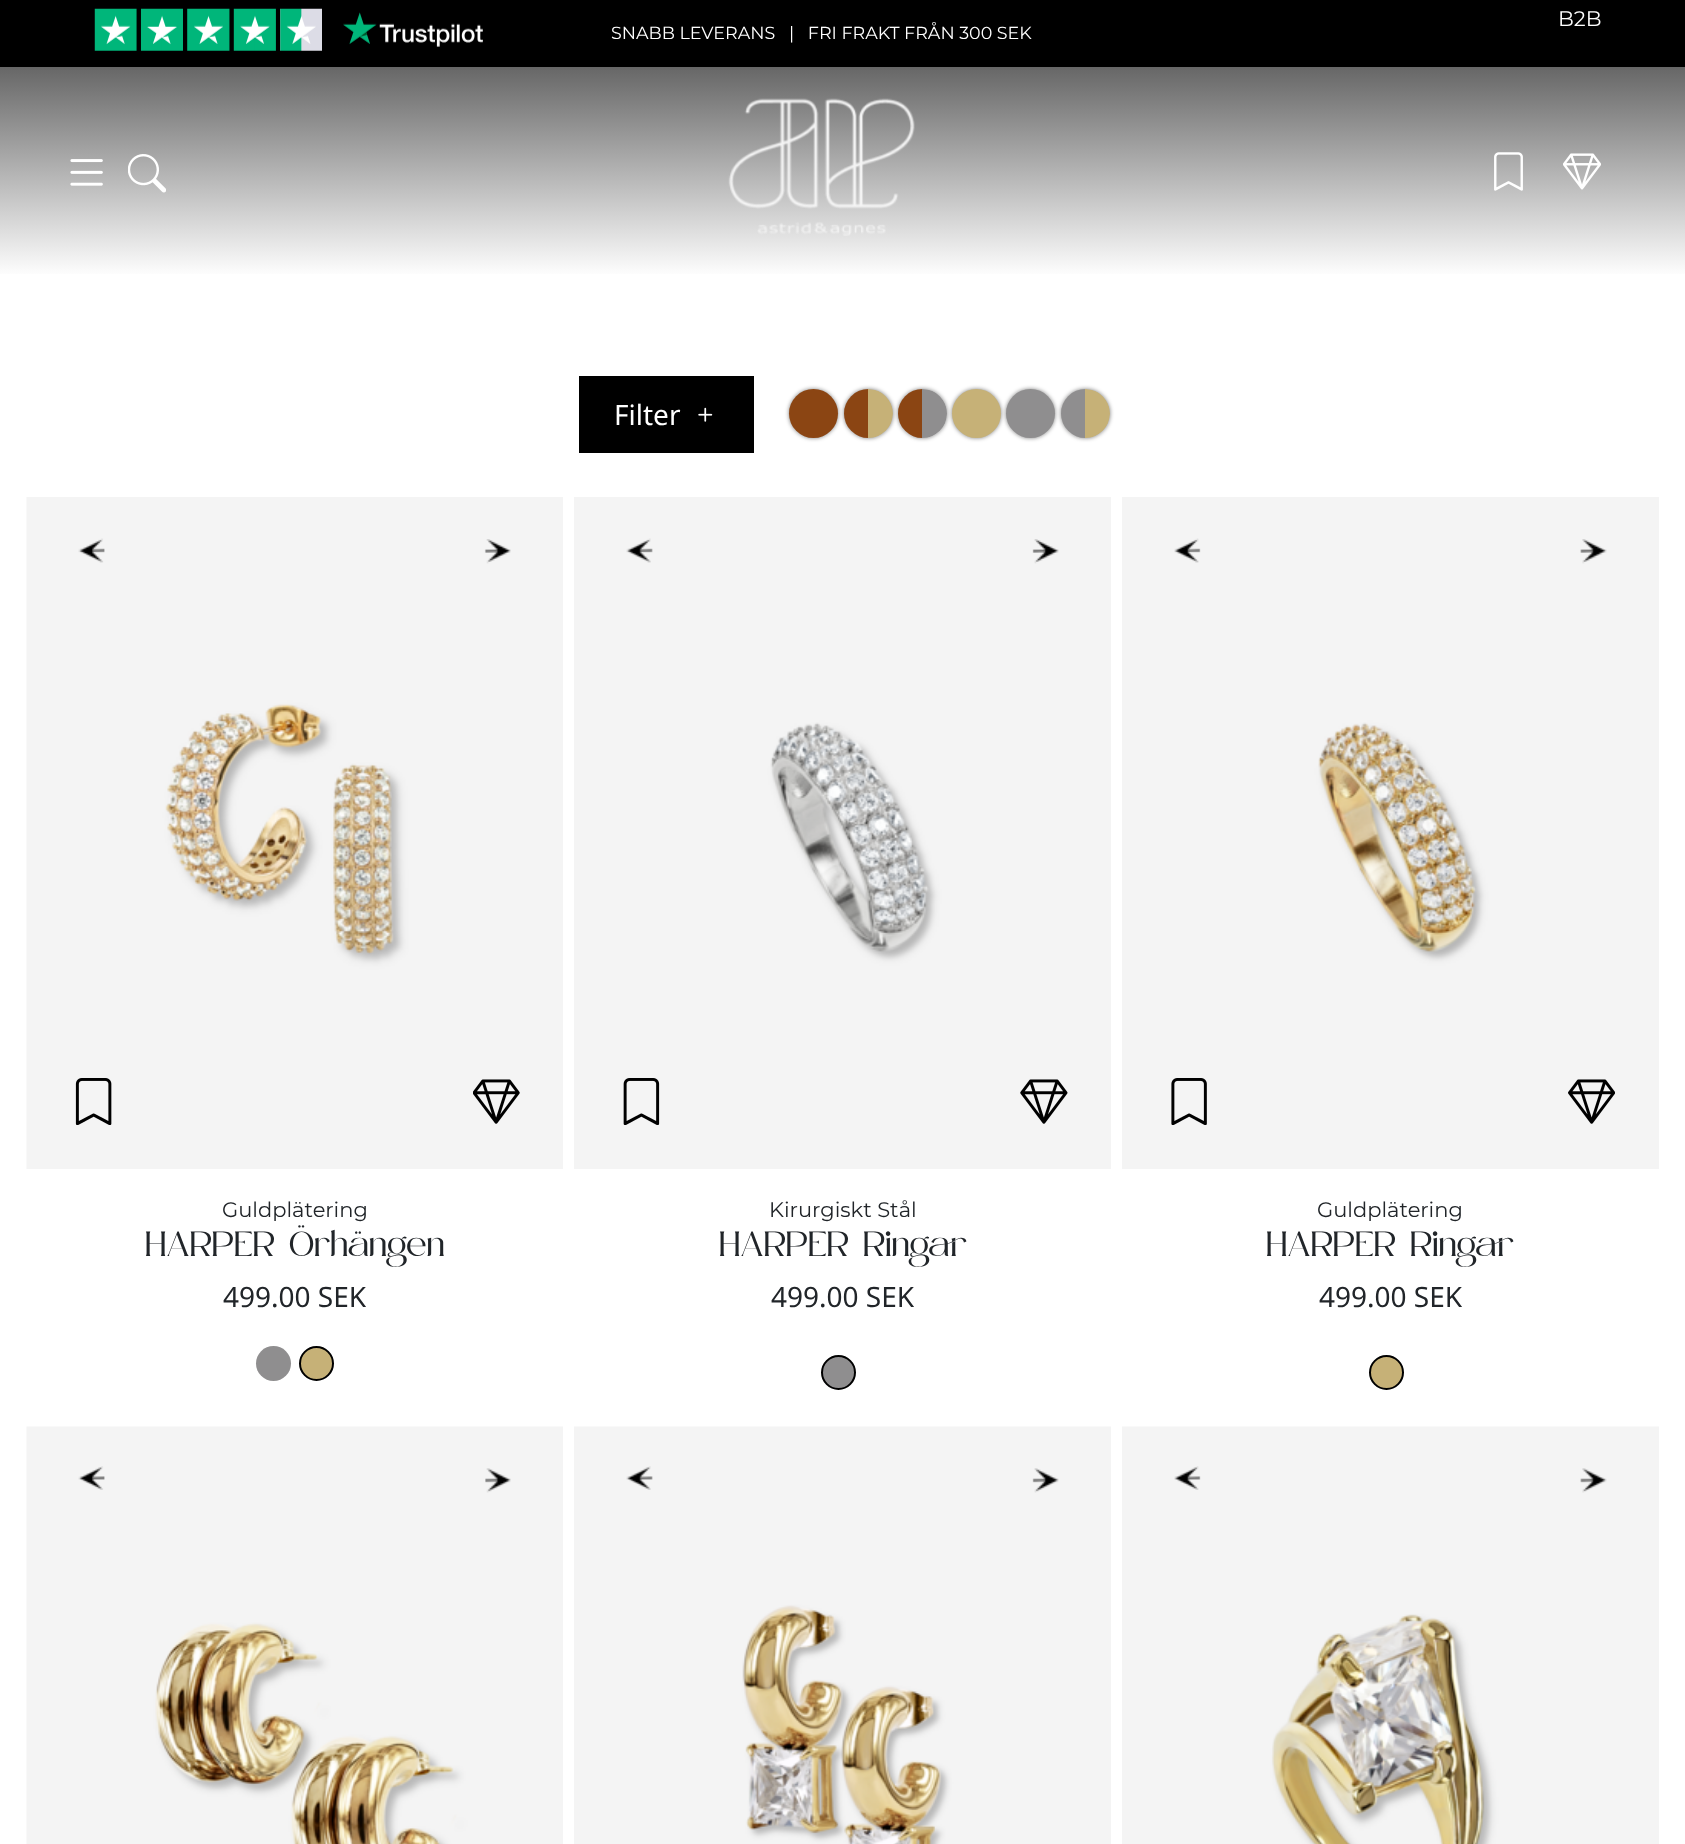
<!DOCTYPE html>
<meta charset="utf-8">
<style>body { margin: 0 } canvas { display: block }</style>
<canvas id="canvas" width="1685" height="1844"></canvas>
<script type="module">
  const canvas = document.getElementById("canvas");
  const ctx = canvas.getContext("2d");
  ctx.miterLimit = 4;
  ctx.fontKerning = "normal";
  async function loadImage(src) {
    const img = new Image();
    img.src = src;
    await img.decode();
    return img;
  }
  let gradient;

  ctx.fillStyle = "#ffffff";
  ctx.fillRect(0, 0, 1685, 1844);
  ctx.fillStyle = "#000000";
  ctx.fillRect(0, 0, 1685, 67);
  ctx.drawImage(await loadImage("img1.png"), 94, 8, 389, 43);
  ctx.font = "21px Montserrat";
  ctx.fillStyle = "#ffffff";
  ctx.fillText("B2B", 1558, 26);
  ctx.font = "17.5px Montserrat";
  ctx.fillText("SNABB LEVERANS   |   FRI FRAKT FRÅN 300 SEK", 611, 39);
  gradient = ctx.createLinearGradient(843, 66, 843, 277);
  gradient.addColorStop(0, "#666666");
  gradient.addColorStop(1, "#ffffff");
  ctx.fillStyle = gradient;
  ctx.fillRect(0, 67, 1685, 207);
  ctx.drawImage(await loadImage("img2.png"), 70, 159, 33, 27);
  ctx.drawImage(await loadImage("img3.png"), 128, 154, 38, 39);
  ctx.drawImage(await loadImage("img4.png"), 728, 98, 187, 138);
  ctx.drawImage(await loadImage("img5.png"), 1494, 152, 29, 39);
  ctx.drawImage(await loadImage("img6.png"), 1563, 153, 38, 37);
  ctx.fillStyle = "#000000";
  ctx.fillRect(579, 376, 175, 77);
  ctx.font = "28px Noto Sans";
  ctx.fillStyle = "#ffffff";
  ctx.fillText("Filter", 614, 425);
  ctx.drawImage(await loadImage("img7.png"), 698, 407, 15, 15);
  ctx.fillStyle = "rgba(0, 0, 0, 0.5)";
  ctx.filter = "blur(2px)";
  ctx.beginPath();
  ctx.roundRect(789, 389, 49, 49, 24.5);
  ctx.fill();
  ctx.filter = "none";
  ctx.fillStyle = "#8b4513";
  ctx.beginPath();
  ctx.arc(813.5, 413.5, 24.5, 0, Math.PI * 2);
  ctx.fill();
  ctx.fillStyle = "rgba(0, 0, 0, 0.5)";
  ctx.filter = "blur(2px)";
  ctx.beginPath();
  ctx.roundRect(844, 389, 49, 49, 24.5);
  ctx.fill();
  ctx.filter = "none";
  ctx.save();
  ctx.beginPath();
  ctx.roundRect(844, 389, 49, 49, 24.5);
  ctx.clip();
  ctx.fillStyle = "#8b4513";
  ctx.fillRect(844, 389, 24, 49);
  ctx.fillStyle = "#c6b177";
  ctx.beginPath();
  ctx.roundRect(868, 389, 25, 49, [0, 24.5, 24.5, 0]);
  ctx.fill();
  ctx.restore();
  ctx.filter = "blur(2px)";
  ctx.beginPath();
  ctx.roundRect(898, 389, 49, 49, 24.5);
  ctx.fill();
  ctx.filter = "none";
  ctx.save();
  ctx.beginPath();
  ctx.roundRect(898, 389, 49, 49, 24.5);
  ctx.clip();
  ctx.fillStyle = "#8b4513";
  ctx.fillRect(898, 389, 24, 49);
  ctx.fillStyle = "#8f8e8f";
  ctx.beginPath();
  ctx.roundRect(922, 389, 25, 49, [0, 24.5, 24.5, 0]);
  ctx.fill();
  ctx.restore();
  ctx.filter = "blur(2px)";
  ctx.beginPath();
  ctx.roundRect(952, 389, 49, 49, 24.5);
  ctx.fill();
  ctx.filter = "none";
  ctx.fillStyle = "#c6b177";
  ctx.beginPath();
  ctx.arc(976.5, 413.5, 24.5, 0, Math.PI * 2);
  ctx.fill();
  ctx.fillStyle = "rgba(0, 0, 0, 0.5)";
  ctx.filter = "blur(2px)";
  ctx.beginPath();
  ctx.roundRect(1006, 389, 49, 49, 24.5);
  ctx.fill();
  ctx.filter = "none";
  ctx.fillStyle = "#8f8e8f";
  ctx.beginPath();
  ctx.arc(1030.5, 413.5, 24.5, 0, Math.PI * 2);
  ctx.fill();
  ctx.fillStyle = "rgba(0, 0, 0, 0.5)";
  ctx.filter = "blur(2px)";
  ctx.beginPath();
  ctx.roundRect(1061, 389, 49, 49, 24.5);
  ctx.fill();
  ctx.filter = "none";
  ctx.save();
  ctx.beginPath();
  ctx.roundRect(1061, 389, 49, 49, 24.5);
  ctx.clip();
  ctx.fillStyle = "#8f8e8f";
  ctx.fillRect(1061, 389, 24, 49);
  ctx.fillStyle = "#c6b177";
  ctx.beginPath();
  ctx.roundRect(1085, 389, 25, 49, [0, 24.5, 24.5, 0]);
  ctx.fill();
  ctx.restore();
  ctx.drawImage(await loadImage("img8.png"), 26, 497, 537, 672);
  ctx.drawImage(await loadImage("img9.png"), 78, 538, 27, 25);
  ctx.drawImage(await loadImage("img10.png"), 484, 539, 27, 25);
  ctx.drawImage(await loadImage("img11.png"), 75, 1078, 37, 47);
  ctx.drawImage(await loadImage("img12.png"), 473, 1079, 47, 45);
  ctx.font = "21px Montserrat";
  ctx.fillStyle = "#212529";
  ctx.fillText("Guldplätering", 222, 1217);
  ctx.font = "35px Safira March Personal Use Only";
  ctx.fillText("HARPER", 145, 1256);
  ctx.fillText("Örhängen", 289, 1256);
  ctx.font = "28px Noto Sans";
  ctx.fillText("499.00 SEK", 223, 1307);
  ctx.fillStyle = "#8f8e8f";
  ctx.beginPath();
  ctx.arc(273.5, 1363.5, 17.5, 0, Math.PI * 2);
  ctx.fill();
  ctx.fillStyle = "#c6b177";
  ctx.beginPath();
  ctx.arc(316.5, 1363.5, 16.5, 0, Math.PI * 2);
  ctx.fill();
  ctx.strokeStyle = "#000000";
  ctx.lineWidth = 2;
  ctx.stroke();
  ctx.drawImage(await loadImage("img13.png"), 574, 497, 537, 672);
  ctx.drawImage(await loadImage("img14.png"), 626, 538, 27, 25);
  ctx.drawImage(await loadImage("img15.png"), 1032, 539, 27, 25);
  ctx.drawImage(await loadImage("img16.png"), 623, 1078, 37, 47);
  ctx.drawImage(await loadImage("img17.png"), 1020, 1079, 48, 45);
  ctx.font = "21px Montserrat";
  ctx.fillStyle = "#212529";
  ctx.fillText("Kirurgiskt Stål", 769, 1217);
  ctx.font = "35px Safira March Personal Use Only";
  ctx.fillText("HARPER", 719, 1256);
  ctx.fillText("Ringar", 863, 1256);
  ctx.font = "28px Noto Sans";
  ctx.fillText("499.00 SEK", 771, 1307);
  ctx.fillStyle = "#8f8e8f";
  ctx.beginPath();
  ctx.arc(838.5, 1372.5, 16.5, 0, Math.PI * 2);
  ctx.fill();
  ctx.stroke();
  ctx.drawImage(await loadImage("img18.png"), 1122, 497, 537, 672);
  ctx.drawImage(await loadImage("img19.png"), 1174, 538, 27, 25);
  ctx.drawImage(await loadImage("img20.png"), 1580, 539, 27, 25);
  ctx.drawImage(await loadImage("img21.png"), 1171, 1078, 36, 47);
  ctx.drawImage(await loadImage("img22.png"), 1568, 1079, 47, 45);
  ctx.font = "21px Montserrat";
  ctx.fillStyle = "#212529";
  ctx.fillText("Guldplätering", 1317, 1217);
  ctx.font = "35px Safira March Personal Use Only";
  ctx.fillText("HARPER", 1266, 1256);
  ctx.fillText("Ringar", 1410, 1256);
  ctx.font = "28px Noto Sans";
  ctx.fillText("499.00 SEK", 1319, 1307);
  ctx.fillStyle = "#c6b177";
  ctx.beginPath();
  ctx.arc(1386.5, 1372.5, 16.5, 0, Math.PI * 2);
  ctx.fill();
  ctx.stroke();
  ctx.drawImage(await loadImage("img23.png"), 26, 1426, 537, 418);
  ctx.drawImage(await loadImage("img24.png"), 78, 1466, 27, 24);
  ctx.drawImage(await loadImage("img25.png"), 485, 1468, 26, 25);
  ctx.drawImage(await loadImage("img26.png"), 574, 1426, 537, 418);
  ctx.drawImage(await loadImage("img27.png"), 626, 1466, 27, 24);
  ctx.drawImage(await loadImage("img28.png"), 1032, 1468, 27, 25);
  ctx.drawImage(await loadImage("img29.png"), 1122, 1426, 537, 418);
  ctx.drawImage(await loadImage("img30.png"), 1174, 1466, 27, 24);
  ctx.drawImage(await loadImage("img31.png"), 1580, 1468, 27, 25);
</script>
